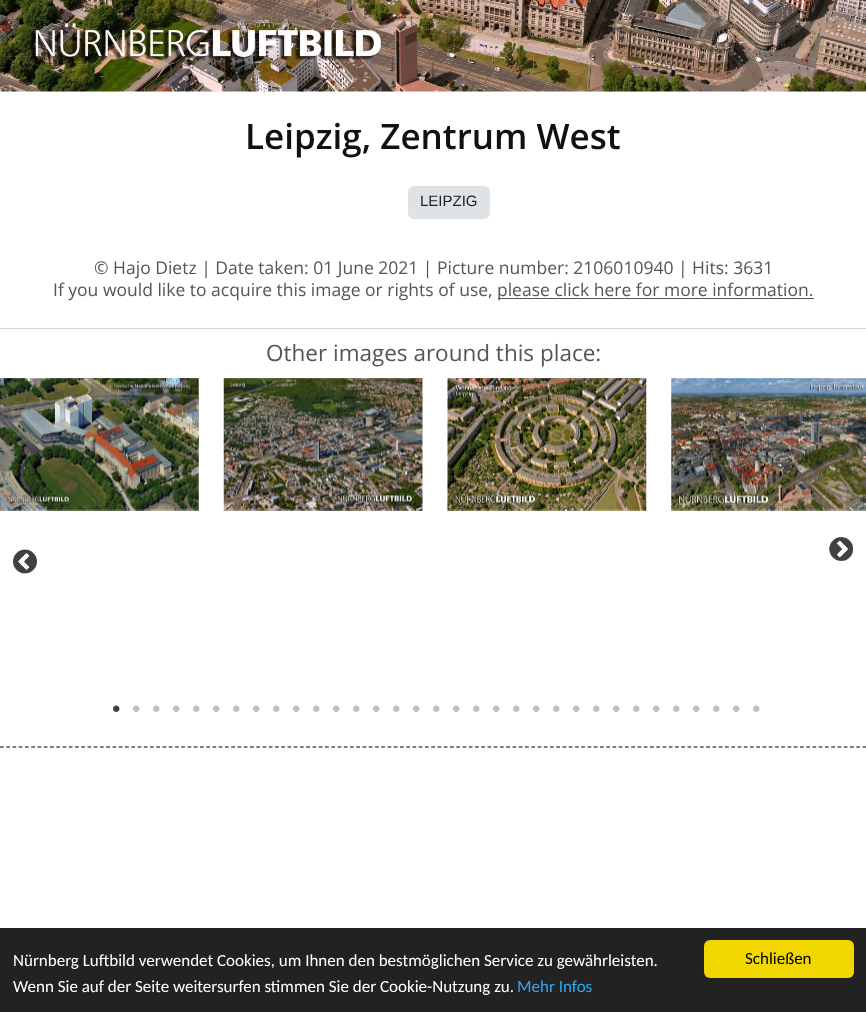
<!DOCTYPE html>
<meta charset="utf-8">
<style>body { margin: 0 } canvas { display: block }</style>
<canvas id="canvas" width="866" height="1012"></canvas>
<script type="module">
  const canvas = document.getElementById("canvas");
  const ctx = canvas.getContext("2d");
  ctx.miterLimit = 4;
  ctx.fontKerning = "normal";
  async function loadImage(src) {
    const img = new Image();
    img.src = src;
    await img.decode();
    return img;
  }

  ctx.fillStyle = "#ffffff";
  ctx.fillRect(0, 0, 866, 1012);
  ctx.drawImage(await loadImage("img1.png"), 0, 0, 866, 92);
  ctx.font = "600 35px Open Sans";
  ctx.fillStyle = "#111111";
  ctx.fillText("Leipzig, Zentrum West", 245, 149);
  ctx.fillStyle = "#e0e3e5";
  ctx.beginPath();
  ctx.roundRect(408, 186, 82, 33, 6);
  ctx.fill();
  ctx.font = "15px Liberation Sans";
  ctx.fillStyle = "#222222";
  ctx.fillText("LEIPZIG", 420, 206);
  ctx.font = "17.5px Open Sans";
  ctx.fillStyle = "#555555";
  ctx.fillText("© Hajo Dietz | Date taken: 01 June 2021 | Picture number: 2106010940 | Hits: 3631", 94, 274);
  ctx.fillText("If you would like to acquire this image or rights of use,", 53, 296);
  ctx.fillRect(498, 298, 316, 1);
  ctx.fillText("please click here for more information.", 497, 296);
  ctx.fillStyle = "#d7d7d7";
  ctx.fillRect(0, 328, 866, 1);
  ctx.font = "22.5px Open Sans";
  ctx.fillStyle = "#555555";
  ctx.fillText("Other images around this place:", 266, 361);
  ctx.drawImage(await loadImage("img2.png"), 0, 378, 199, 133);
  ctx.drawImage(await loadImage("img3.png"), 223, 378, 200, 133);
  ctx.drawImage(await loadImage("img4.png"), 447, 378, 200, 133);
  ctx.drawImage(await loadImage("img5.png"), 671, 378, 195, 133);
  ctx.drawImage(await loadImage("img6.png"), 13, 549, 24, 25);
  ctx.drawImage(await loadImage("img7.png"), 829, 537, 24, 24);
  ctx.drawImage(await loadImage("img8.png"), 113, 705, 7, 7);
  ctx.drawImage(await loadImage("img9.png"), 133, 705, 7, 7);
  ctx.drawImage(await loadImage("img9.png"), 153, 705, 7, 7);
  ctx.drawImage(await loadImage("img9.png"), 173, 705, 7, 7);
  ctx.drawImage(await loadImage("img9.png"), 193, 705, 7, 7);
  ctx.drawImage(await loadImage("img9.png"), 213, 705, 7, 7);
  ctx.drawImage(await loadImage("img9.png"), 233, 705, 7, 7);
  ctx.drawImage(await loadImage("img9.png"), 253, 705, 7, 7);
  ctx.drawImage(await loadImage("img9.png"), 273, 705, 7, 7);
  ctx.drawImage(await loadImage("img9.png"), 293, 705, 7, 7);
  ctx.drawImage(await loadImage("img9.png"), 313, 705, 7, 7);
  ctx.drawImage(await loadImage("img9.png"), 333, 705, 7, 7);
  ctx.drawImage(await loadImage("img9.png"), 353, 705, 7, 7);
  ctx.drawImage(await loadImage("img9.png"), 373, 705, 7, 7);
  ctx.drawImage(await loadImage("img9.png"), 393, 705, 7, 7);
  ctx.drawImage(await loadImage("img9.png"), 413, 705, 7, 7);
  ctx.drawImage(await loadImage("img9.png"), 433, 705, 7, 7);
  ctx.drawImage(await loadImage("img9.png"), 453, 705, 7, 7);
  ctx.drawImage(await loadImage("img9.png"), 473, 705, 7, 7);
  ctx.drawImage(await loadImage("img9.png"), 493, 705, 7, 7);
  ctx.drawImage(await loadImage("img9.png"), 513, 705, 7, 7);
  ctx.drawImage(await loadImage("img9.png"), 533, 705, 7, 7);
  ctx.drawImage(await loadImage("img9.png"), 553, 705, 7, 7);
  ctx.drawImage(await loadImage("img9.png"), 573, 705, 7, 7);
  ctx.drawImage(await loadImage("img9.png"), 593, 705, 7, 7);
  ctx.drawImage(await loadImage("img9.png"), 613, 705, 7, 7);
  ctx.drawImage(await loadImage("img9.png"), 633, 705, 7, 7);
  ctx.drawImage(await loadImage("img9.png"), 653, 705, 7, 7);
  ctx.drawImage(await loadImage("img9.png"), 673, 705, 7, 7);
  ctx.drawImage(await loadImage("img9.png"), 693, 705, 7, 7);
  ctx.drawImage(await loadImage("img9.png"), 713, 705, 7, 7);
  ctx.drawImage(await loadImage("img9.png"), 733, 705, 7, 7);
  ctx.drawImage(await loadImage("img9.png"), 753, 705, 7, 7);
  ctx.beginPath();
  ctx.moveTo(0, 747);
  ctx.lineTo(866, 747);
  ctx.strokeStyle = "#000000";
  ctx.lineWidth = 1.2;
  ctx.setLineDash([3.75, 2.5]);
  ctx.stroke();
  ctx.fillStyle = "#222222";
  ctx.fillRect(0, 928, 866, 84);
  ctx.font = "17px Carlito";
  ctx.fillStyle = "#ffffff";
  ctx.fillText("Nürnberg Luftbild verwendet Cookies, um Ihnen den bestmöglichen Service zu gewährleisten.", 13, 966);
  ctx.fillText("Wenn Sie auf der Seite weitersurfen stimmen Sie der Cookie-Nutzung zu.", 13, 992);
  ctx.fillStyle = "#31a8f0";
  ctx.fillText("Mehr Infos", 517, 992);
  ctx.fillStyle = "#f1d600";
  ctx.beginPath();
  ctx.roundRect(704, 940, 150, 38, 6);
  ctx.fill();
  ctx.fillStyle = "#000000";
  ctx.fillText("Schließen", 745, 964);
</script>
